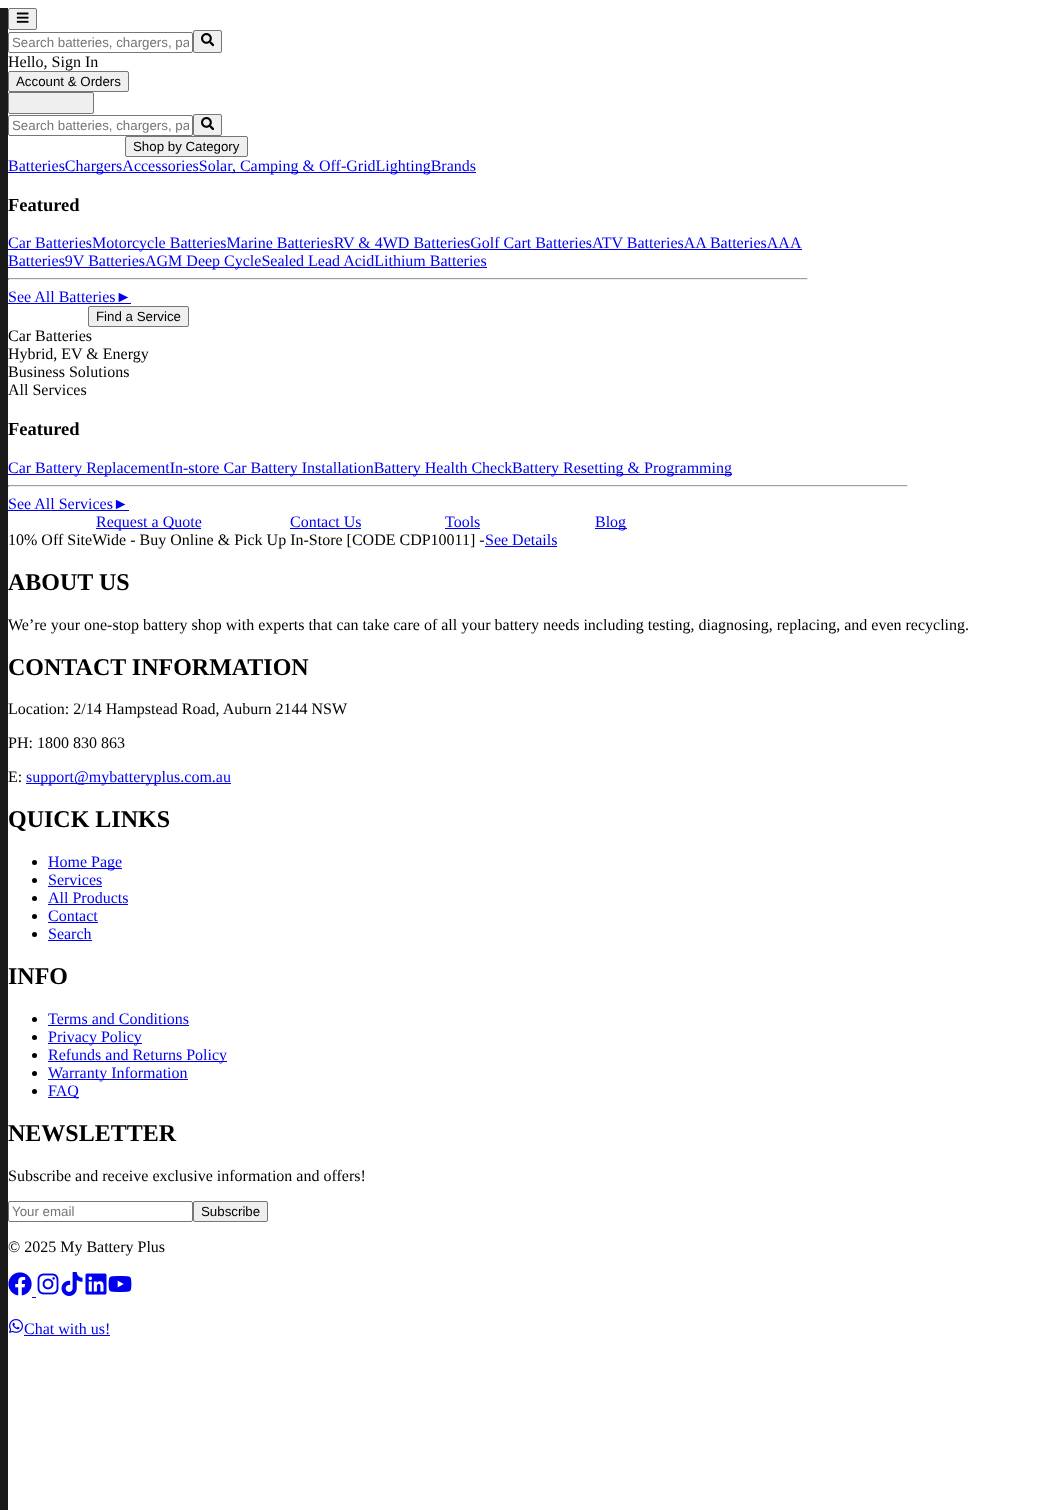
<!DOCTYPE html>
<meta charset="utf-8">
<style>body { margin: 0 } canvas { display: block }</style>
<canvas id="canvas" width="1061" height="1510"></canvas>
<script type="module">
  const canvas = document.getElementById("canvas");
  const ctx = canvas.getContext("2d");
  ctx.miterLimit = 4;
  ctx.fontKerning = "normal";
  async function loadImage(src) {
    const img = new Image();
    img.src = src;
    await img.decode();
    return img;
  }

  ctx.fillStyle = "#ffffff";
  ctx.fillRect(0, 0, 1061, 1510);
  ctx.fillStyle = "#1a1a1a";
  ctx.fillRect(0, 8, 8, 1502);
  ctx.fillStyle = "#efefef";
  ctx.beginPath();
  ctx.roundRect(8.5, 8.5, 28, 21, 1.5);
  ctx.fill();
  ctx.strokeStyle = "#767676";
  ctx.stroke();
  ctx.drawImage(await loadImage("img1.png"), 16, 12, 13, 11);
  ctx.beginPath();
  ctx.roundRect(8.5, 32.5, 184, 20, 1.5);
  ctx.stroke();
  ctx.save();
  ctx.beginPath();
  ctx.rect(12, 35, 177, 15);
  ctx.clip();
  ctx.font = "13.3px Liberation Sans";
  ctx.fillStyle = "#757575";
  ctx.fillText("Search batteries, chargers, pa", 12, 47);
  ctx.restore();
  ctx.beginPath();
  ctx.roundRect(193.5, 30.5, 28, 22, 1.5);
  ctx.fill();
  ctx.stroke();
  ctx.drawImage(await loadImage("img2.png"), 201, 33, 13, 14);
  ctx.font = "16px Liberation Serif";
  ctx.fillStyle = "#000000";
  ctx.fillText("Hello, Sign In", 8, 67);
  ctx.fillStyle = "#efefef";
  ctx.beginPath();
  ctx.roundRect(8.5, 71.5, 120, 20, 1.5);
  ctx.fill();
  ctx.stroke();
  ctx.font = "13.3px Liberation Sans";
  ctx.fillStyle = "#000000";
  ctx.fillText("Account & Orders", 16, 86);
  ctx.fillStyle = "#efefef";
  ctx.beginPath();
  ctx.roundRect(8.5, 92.5, 85, 21, 1.5);
  ctx.fill();
  ctx.stroke();
  ctx.beginPath();
  ctx.roundRect(8.5, 115.5, 184, 20, 1.5);
  ctx.stroke();
  ctx.save();
  ctx.beginPath();
  ctx.rect(12, 118, 177, 15);
  ctx.clip();
  ctx.fillStyle = "#757575";
  ctx.fillText("Search batteries, chargers, pa", 12, 130);
  ctx.restore();
  ctx.beginPath();
  ctx.roundRect(193.5, 114.5, 28, 21, 1.5);
  ctx.fill();
  ctx.stroke();
  ctx.drawImage(await loadImage("img3.png"), 201, 117, 13, 13);
  ctx.beginPath();
  ctx.roundRect(125.5, 136.5, 122, 20, 1.5);
  ctx.fill();
  ctx.stroke();
  ctx.fillStyle = "#000000";
  ctx.fillText("Shop by Category", 133, 151);
  ctx.fillStyle = "#0000ee";
  ctx.fillRect(8, 172, 468, 1);
  ctx.font = "16px Liberation Serif";
  ctx.fillText("BatteriesChargersAccessoriesSolar, Camping & Off-GridLightingBrands", 8, 171);
  ctx.font = "bold 18.5px Liberation Serif";
  ctx.fillStyle = "#000000";
  ctx.fillText("Featured", 8, 211);
  ctx.fillStyle = "#0000ee";
  ctx.fillRect(8, 249, 794, 1);
  ctx.font = "16px Liberation Serif";
  ctx.fillText("Car BatteriesMotorcycle BatteriesMarine BatteriesRV & 4WD BatteriesGolf Cart BatteriesATV BatteriesAA BatteriesAAA", 8, 248);
  ctx.fillRect(8, 267, 366, 1);
  ctx.fillText("Batteries9V BatteriesAGM Deep CycleSealed Lead AcidLithium Batteries", 8, 266);
  ctx.fillRect(374, 267, 113, 1);
  ctx.fillStyle = "#9f9f9f";
  ctx.fillRect(8, 278, 800, 1);
  ctx.fillStyle = "#eeeeee";
  ctx.fillRect(807, 278, 1, 2);
  ctx.fillRect(8, 279, 800, 1);
  ctx.fillStyle = "#9f9f9f";
  ctx.fillRect(8, 278, 1, 2);
  ctx.fillStyle = "#0000ee";
  ctx.fillText("See All Batteries►", 8, 302);
  ctx.fillRect(8, 303, 123, 1);
  ctx.fillStyle = "#efefef";
  ctx.beginPath();
  ctx.roundRect(88.5, 306.5, 100, 20, 1.5);
  ctx.fill();
  ctx.stroke();
  ctx.font = "13.3px Liberation Sans";
  ctx.fillStyle = "#000000";
  ctx.fillText("Find a Service", 96, 321);
  ctx.font = "16px Liberation Serif";
  ctx.fillText("Car Batteries", 8, 341);
  ctx.fillText("Hybrid, EV & Energy", 8, 359);
  ctx.fillText("Business Solutions", 8, 377);
  ctx.fillText("All Services", 8, 395);
  ctx.font = "bold 18.5px Liberation Serif";
  ctx.fillText("Featured", 8, 435);
  ctx.fillStyle = "#0000ee";
  ctx.fillRect(8, 474, 504, 1);
  ctx.font = "16px Liberation Serif";
  ctx.fillText("Car Battery ReplacementIn-store Car Battery InstallationBattery Health Check", 8, 473);
  ctx.fillRect(512, 474, 220, 1);
  ctx.fillText("Battery Resetting & Programming", 512, 473);
  ctx.fillStyle = "#9f9f9f";
  ctx.fillRect(8, 485, 900, 1);
  ctx.fillStyle = "#eeeeee";
  ctx.fillRect(907, 485, 1, 2);
  ctx.fillRect(8, 486, 900, 1);
  ctx.fillStyle = "#9f9f9f";
  ctx.fillRect(8, 485, 1, 2);
  ctx.fillStyle = "#0000ee";
  ctx.fillText("See All Services►", 8, 509);
  ctx.fillRect(8, 510, 121, 1);
  ctx.fillRect(96, 528, 105, 1);
  ctx.fillText("Request a Quote", 96, 527);
  ctx.fillText("Contact Us", 290, 527);
  ctx.fillRect(290, 528, 71, 1);
  ctx.fillText("Tools", 445, 527);
  ctx.fillRect(445, 528, 35, 1);
  ctx.fillRect(595, 528, 32, 1);
  ctx.fillText("Blog", 595, 527);
  ctx.fillStyle = "#000000";
  ctx.fillText("10% Off SiteWide - Buy Online & Pick Up In-Store [CODE CDP10011] -", 8, 545);
  ctx.fillStyle = "#0000ee";
  ctx.fillText("See Details", 485, 545);
  ctx.fillRect(485, 546, 72, 1);
  ctx.font = "bold 24px Liberation Serif";
  ctx.fillStyle = "#000000";
  ctx.fillText("ABOUT US", 8, 590);
  ctx.font = "16px Liberation Serif";
  ctx.fillText("We’re your one-stop battery shop with experts that can take care of all your battery needs including testing, diagnosing, replacing, and even recycling.", 8, 630);
  ctx.font = "bold 24px Liberation Serif";
  ctx.fillText("CONTACT INFORMATION", 8, 675);
  ctx.font = "16px Liberation Serif";
  ctx.fillText("Location: 2/14 Hampstead Road, Auburn 2144 NSW", 8, 714);
  ctx.fillText("PH: 1800 830 863", 8, 748);
  ctx.fillText("E:", 8, 782);
  ctx.fillStyle = "#0000ee";
  ctx.fillRect(26, 783, 205, 1);
  ctx.fillText("support@mybatteryplus.com.au", 26, 782);
  ctx.font = "bold 24px Liberation Serif";
  ctx.fillStyle = "#000000";
  ctx.fillText("QUICK LINKS", 8, 827);
  ctx.beginPath();
  ctx.arc(34.5, 862.5, 2.5, 0, Math.PI * 2);
  ctx.fill();
  ctx.fillStyle = "#0000ee";
  ctx.fillRect(48, 868, 74, 1);
  ctx.font = "16px Liberation Serif";
  ctx.fillText("Home Page", 48, 867);
  ctx.fillStyle = "#000000";
  ctx.beginPath();
  ctx.arc(34.5, 880.5, 2.5, 0, Math.PI * 2);
  ctx.fill();
  ctx.fillStyle = "#0000ee";
  ctx.fillText("Services", 48, 885);
  ctx.fillRect(48, 886, 54, 1);
  ctx.fillStyle = "#000000";
  ctx.beginPath();
  ctx.arc(34.5, 898.5, 2.5, 0, Math.PI * 2);
  ctx.fill();
  ctx.fillStyle = "#0000ee";
  ctx.fillText("All Products", 48, 903);
  ctx.fillRect(48, 904, 80, 1);
  ctx.fillStyle = "#000000";
  ctx.beginPath();
  ctx.arc(34.5, 916.5, 2.5, 0, Math.PI * 2);
  ctx.fill();
  ctx.fillStyle = "#0000ee";
  ctx.fillText("Contact", 48, 921);
  ctx.fillRect(48, 922, 50, 1);
  ctx.fillStyle = "#000000";
  ctx.beginPath();
  ctx.arc(34.5, 934.5, 2.5, 0, Math.PI * 2);
  ctx.fill();
  ctx.fillStyle = "#0000ee";
  ctx.fillText("Search", 48, 939);
  ctx.fillRect(48, 940, 44, 1);
  ctx.font = "bold 24px Liberation Serif";
  ctx.fillStyle = "#000000";
  ctx.fillText("INFO", 8, 984);
  ctx.beginPath();
  ctx.arc(34.5, 1019.5, 2.5, 0, Math.PI * 2);
  ctx.fill();
  ctx.font = "16px Liberation Serif";
  ctx.fillStyle = "#0000ee";
  ctx.fillText("Terms and Conditions", 48, 1024);
  ctx.fillRect(48, 1025, 141, 1);
  ctx.fillStyle = "#000000";
  ctx.beginPath();
  ctx.arc(34.5, 1037.5, 2.5, 0, Math.PI * 2);
  ctx.fill();
  ctx.fillStyle = "#0000ee";
  ctx.fillRect(48, 1043, 94, 1);
  ctx.fillText("Privacy Policy", 48, 1042);
  ctx.fillStyle = "#000000";
  ctx.beginPath();
  ctx.arc(34.5, 1055.5, 2.5, 0, Math.PI * 2);
  ctx.fill();
  ctx.fillStyle = "#0000ee";
  ctx.fillRect(48, 1061, 179, 1);
  ctx.fillText("Refunds and Returns Policy", 48, 1060);
  ctx.fillStyle = "#000000";
  ctx.beginPath();
  ctx.arc(34.5, 1073.5, 2.5, 0, Math.PI * 2);
  ctx.fill();
  ctx.fillStyle = "#0000ee";
  ctx.fillRect(48, 1079, 140, 1);
  ctx.fillText("Warranty Information", 48, 1078);
  ctx.fillStyle = "#000000";
  ctx.beginPath();
  ctx.arc(34.5, 1091.5, 2.5, 0, Math.PI * 2);
  ctx.fill();
  ctx.fillStyle = "#0000ee";
  ctx.fillRect(48, 1097, 31, 1);
  ctx.fillText("FAQ", 48, 1096);
  ctx.font = "bold 24px Liberation Serif";
  ctx.fillStyle = "#000000";
  ctx.fillText("NEWSLETTER", 8, 1141);
  ctx.font = "16px Liberation Serif";
  ctx.fillText("Subscribe and receive exclusive information and offers!", 8, 1181);
  ctx.beginPath();
  ctx.roundRect(8.5, 1201.5, 184, 20, 1.5);
  ctx.stroke();
  ctx.font = "13.3px Liberation Sans";
  ctx.fillStyle = "#757575";
  ctx.fillText("Your email", 12, 1216);
  ctx.fillStyle = "#efefef";
  ctx.beginPath();
  ctx.roundRect(193.5, 1201.5, 74, 20, 1.5);
  ctx.fill();
  ctx.stroke();
  ctx.fillStyle = "#000000";
  ctx.fillText("Subscribe", 201, 1216);
  ctx.font = "16px Liberation Serif";
  ctx.fillText("© 2025 My Battery Plus", 8, 1252);
  ctx.drawImage(await loadImage("img4.png"), 8, 1272, 24, 24);
  ctx.drawImage(await loadImage("img5.png"), 37, 1273, 22, 22);
  ctx.drawImage(await loadImage("img6.png"), 61, 1272, 22, 24);
  ctx.drawImage(await loadImage("img7.png"), 85, 1273, 22, 22);
  ctx.drawImage(await loadImage("img8.png"), 108, 1276, 24, 16);
  ctx.fillStyle = "#0000ee";
  ctx.fillRect(32, 1297, 4, 1);
  ctx.drawImage(await loadImage("img9.png"), 9, 1319, 14, 14);
  ctx.fillText("Chat with us!", 24, 1334);
  ctx.fillRect(24, 1335, 86, 1);
</script>
